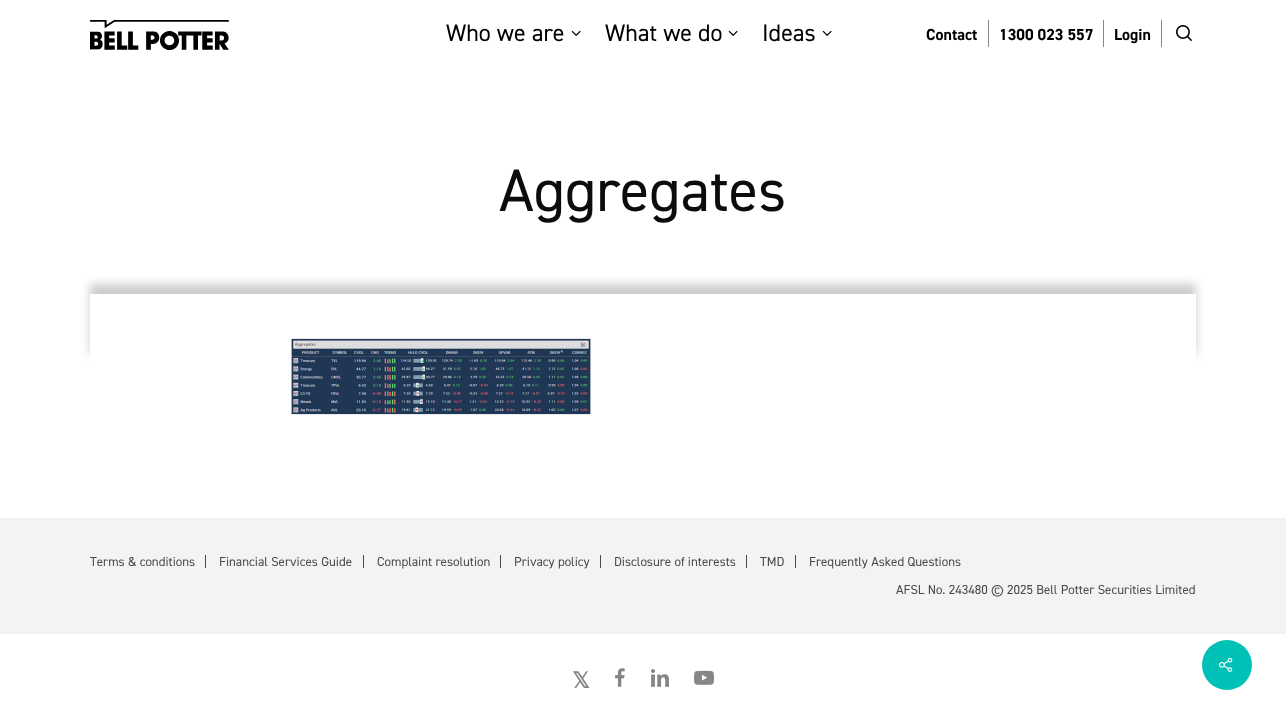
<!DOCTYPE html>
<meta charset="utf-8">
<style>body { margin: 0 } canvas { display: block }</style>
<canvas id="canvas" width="1286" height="724"></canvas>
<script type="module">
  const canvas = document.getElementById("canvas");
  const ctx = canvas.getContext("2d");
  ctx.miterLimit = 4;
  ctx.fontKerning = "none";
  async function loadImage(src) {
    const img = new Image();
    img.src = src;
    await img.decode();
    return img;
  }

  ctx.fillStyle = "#ffffff";
  ctx.fillRect(0, 0, 1286, 724);
  ctx.drawImage(await loadImage("img1.png"), 90, 20, 139, 30);
  ctx.font = "24px 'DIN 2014'";
  ctx.fillStyle = "#000000";
  ctx.fillText("Who we are", 446, 41);
  ctx.drawImage(await loadImage("img2.png"), 571, 30, 10, 6);
  ctx.fillText("What we do", 605, 41);
  ctx.drawImage(await loadImage("img2.png"), 728, 30, 10, 6);
  ctx.fillText("Ideas", 762, 41);
  ctx.drawImage(await loadImage("img2.png"), 822, 30, 10, 6);
  ctx.fillStyle = "#868686";
  ctx.fillRect(988, 20, 1, 27);
  ctx.font = "bold 16px 'DIN 2014'";
  ctx.fillStyle = "#000000";
  ctx.fillText("Contact", 926, 40);
  ctx.fillStyle = "#868686";
  ctx.fillRect(1103, 20, 1, 27);
  ctx.fillStyle = "#000000";
  ctx.fillText("1300 023 557", 999, 40);
  ctx.fillStyle = "#868686";
  ctx.fillRect(1161, 20, 1, 27);
  ctx.fillStyle = "#000000";
  ctx.fillText("Login", 1114, 40);
  ctx.drawImage(await loadImage("img3.png"), 1176, 25, 16, 16);
  ctx.font = "60px 'DIN 2014'";
  ctx.fillStyle = "#0c0c0c";
  ctx.fillText("Aggregates", 499, 211);
  ctx.save();
  ctx.beginPath();
  ctx.moveTo(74, 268);
  ctx.lineTo(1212, 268);
  ctx.lineTo(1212, 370);
  ctx.lineTo(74, 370);
  ctx.closePath();
  ctx.moveTo(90, 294);
  ctx.lineTo(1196, 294);
  ctx.lineTo(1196, 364);
  ctx.lineTo(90, 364);
  ctx.closePath();
  ctx.clip("evenodd");
  ctx.fillStyle = "rgba(0, 0, 0, 0.2)";
  ctx.filter = "blur(5px)";
  ctx.beginPath();
  ctx.rect(90, 284, 1106, 70);
  ctx.fill();
  ctx.filter = "none";
  ctx.restore();
  ctx.drawImage(await loadImage("img4.png"), 291, 338, 300, 77);
  ctx.fillStyle = "#f3f3f3";
  ctx.fillRect(0, 518, 1286, 116);
  ctx.fillStyle = "#4a4a4a";
  ctx.fillRect(205, 555, 1, 13);
  ctx.font = "13px 'DIN 2014'";
  ctx.fillText("Terms & conditions", 90, 566);
  ctx.fillRect(363, 555, 1, 13);
  ctx.fillText("Financial Services Guide", 219, 566);
  ctx.fillRect(500, 555, 1, 13);
  ctx.fillText("Complaint resolution", 377, 566);
  ctx.fillRect(600, 555, 1, 13);
  ctx.fillText("Privacy policy", 514, 566);
  ctx.fillRect(746, 555, 1, 13);
  ctx.fillText("Disclosure of interests", 614, 566);
  ctx.fillRect(795, 555, 1, 13);
  ctx.fillText("TMD", 760, 566);
  ctx.fillText("Frequently Asked Questions", 809, 566);
  ctx.fillText("AFSL No. 243480 © 2025 Bell Potter Securities Limited", 896, 594);
  ctx.font = "bold 22px DejaVu Sans";
  ctx.fillStyle = "#868686";
  ctx.fillText("𝕏", 572, 688);
  ctx.drawImage(await loadImage("img5.png"), 615, 668, 10, 19);
  ctx.drawImage(await loadImage("img6.png"), 651, 669, 18, 18);
  ctx.drawImage(await loadImage("img7.png"), 694, 670, 20, 15);
  ctx.fillStyle = "#00c1b5";
  ctx.beginPath();
  ctx.arc(1227, 665, 25, 0, Math.PI * 2);
  ctx.fill();
  ctx.drawImage(await loadImage("img8.png"), 1219, 657, 14, 15);
</script>
